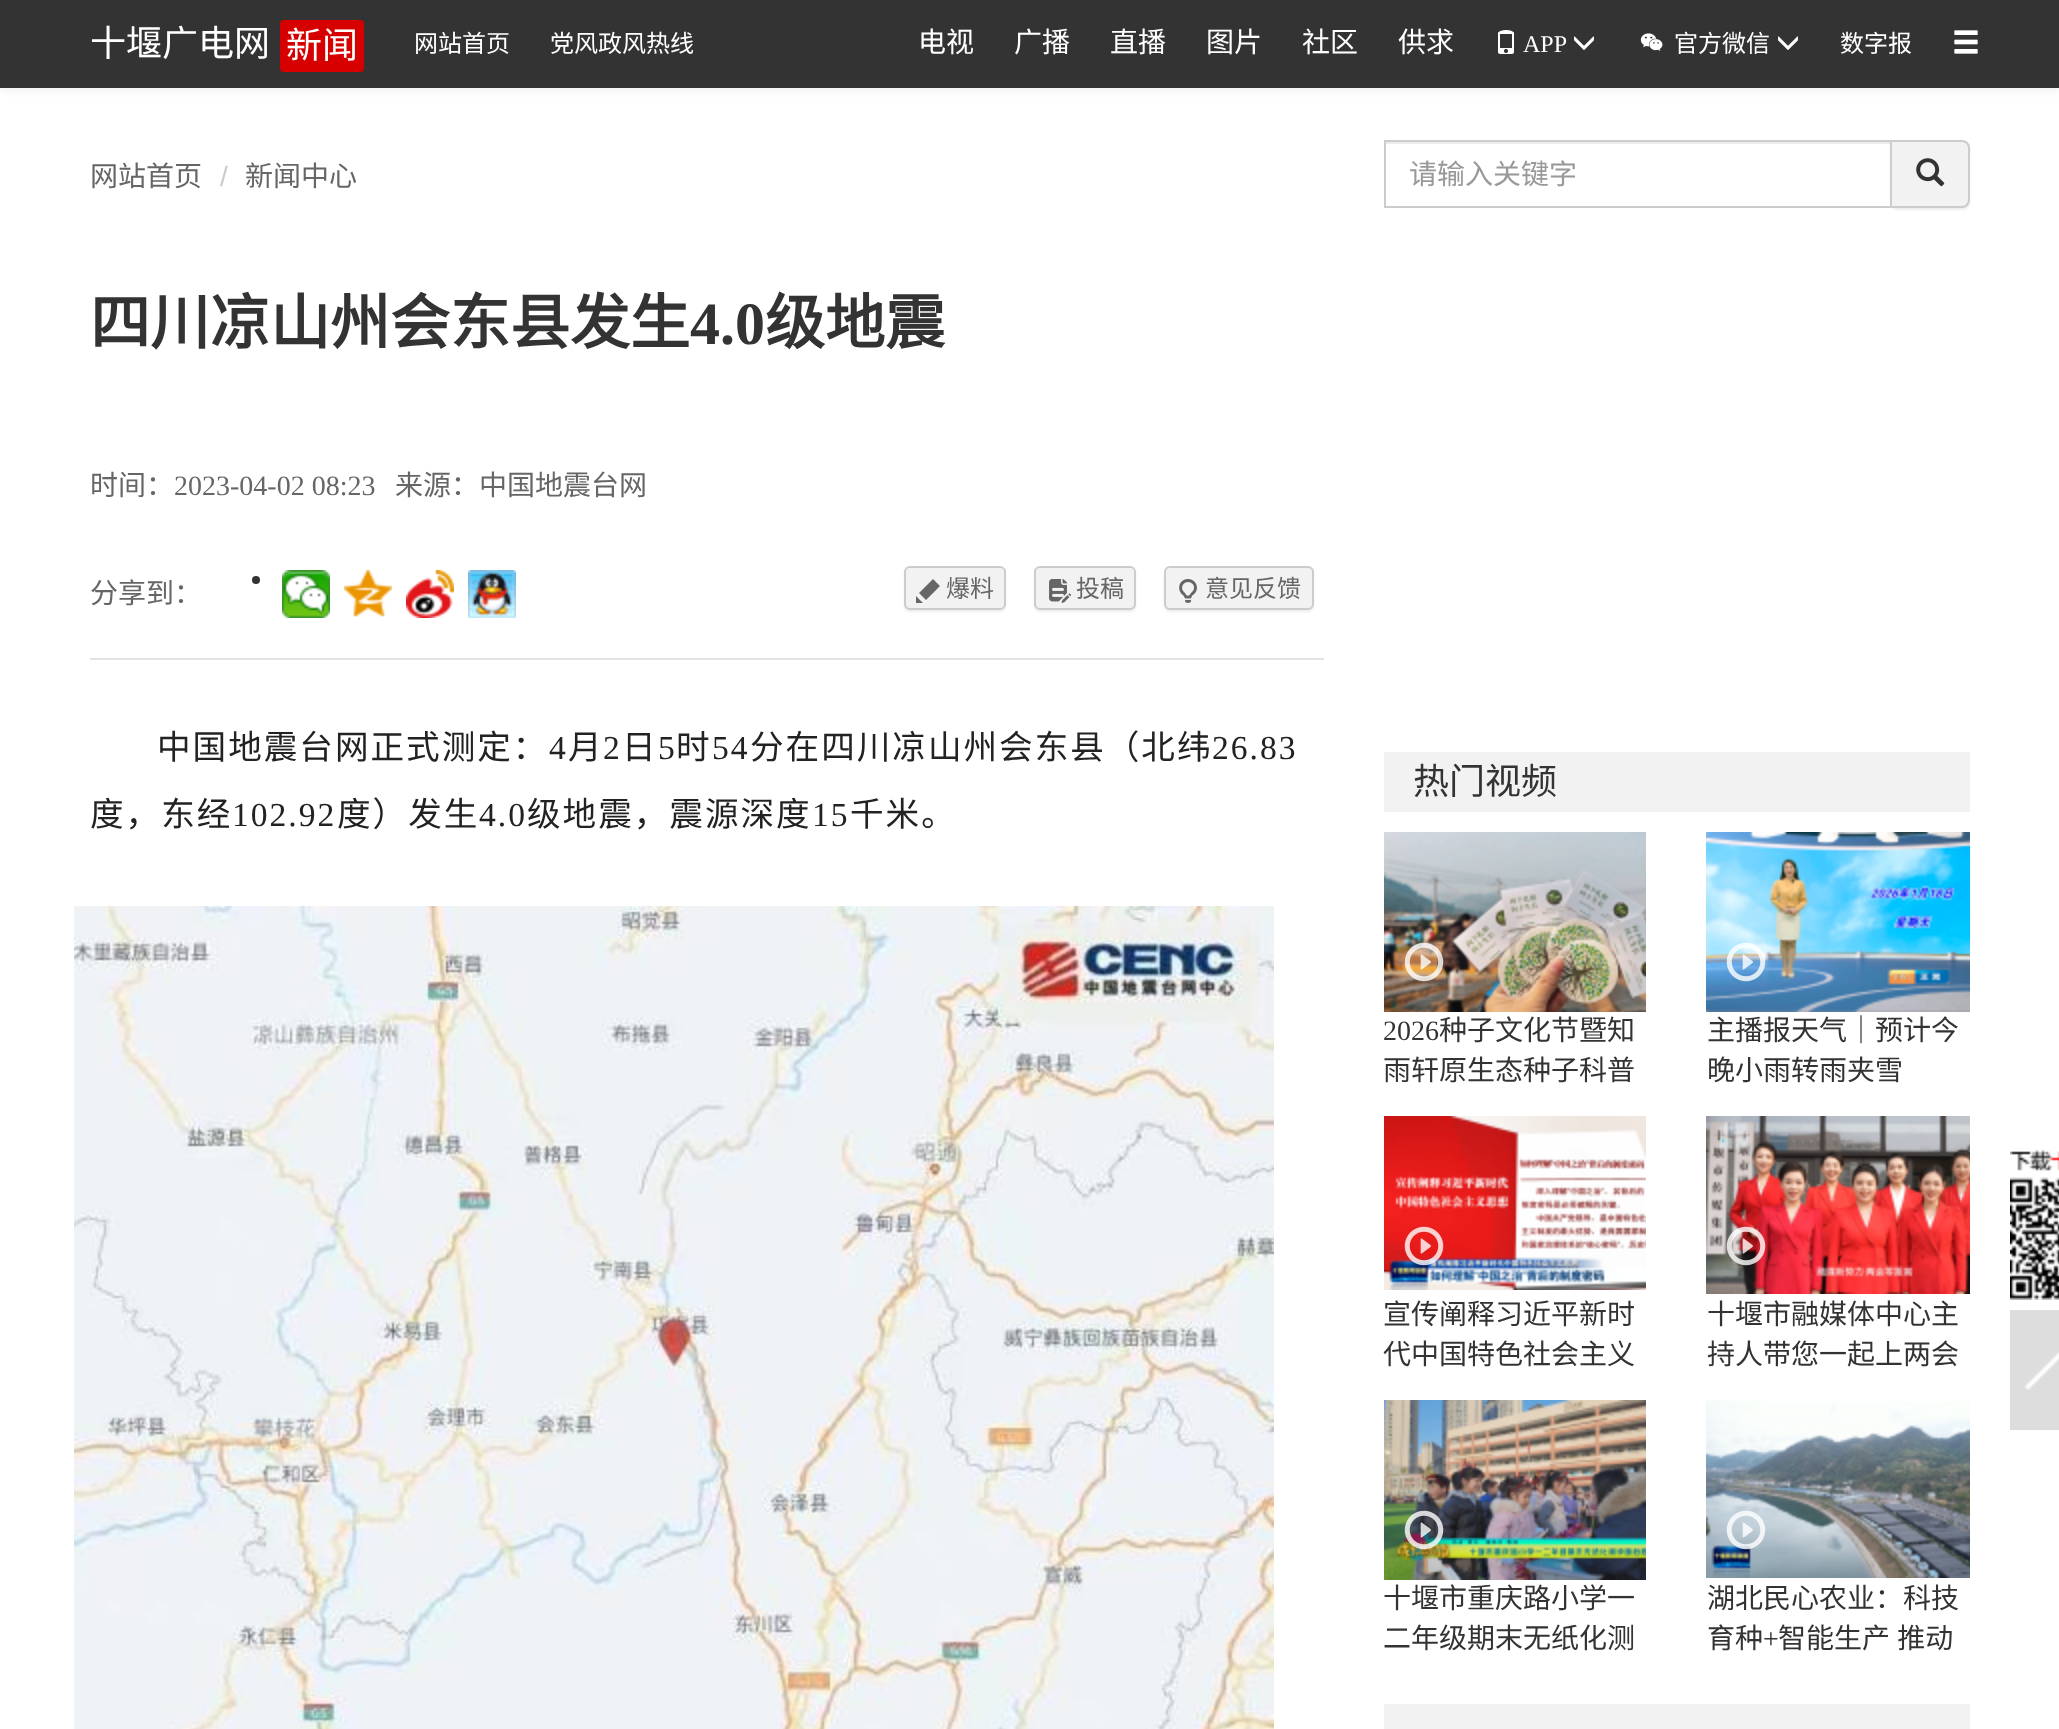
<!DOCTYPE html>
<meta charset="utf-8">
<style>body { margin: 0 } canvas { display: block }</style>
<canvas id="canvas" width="2059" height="1729"></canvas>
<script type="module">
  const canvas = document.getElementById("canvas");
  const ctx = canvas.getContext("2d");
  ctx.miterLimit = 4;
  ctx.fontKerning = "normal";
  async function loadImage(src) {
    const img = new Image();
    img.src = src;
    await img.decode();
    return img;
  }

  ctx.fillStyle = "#ffffff";
  ctx.fillRect(0, 0, 2059, 1729);
  ctx.fillStyle = "rgba(0, 0, 0, 0.07)";
  ctx.filter = "blur(5px)";
  ctx.beginPath();
  ctx.rect(0, 2, 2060, 88);
  ctx.fill();
  ctx.filter = "none";
  ctx.fillStyle = "#333333";
  ctx.fillRect(0, 0, 2059, 88);
  ctx.font = "36px Noto Sans CJK SC";
  ctx.fillStyle = "#ffffff";
  ctx.fillText("十堰广电网", 90, 56);
  ctx.fillStyle = "#d60000";
  ctx.beginPath();
  ctx.roundRect(280, 20, 84, 52, 4);
  ctx.fill();
  ctx.fillStyle = "#ffffff";
  ctx.fillText("新闻", 286, 58);
  ctx.font = "24px Noto Sans CJK SC";
  ctx.fillText("网站首页", 414, 52);
  ctx.fillText("党风政风热线", 550, 52);
  ctx.font = "28px Noto Sans CJK SC";
  ctx.fillText("电视", 918, 52);
  ctx.fillText("广播", 1014, 52);
  ctx.fillText("直播", 1110, 52);
  ctx.fillText("图片", 1206, 52);
  ctx.fillText("社区", 1302, 52);
  ctx.fillText("供求", 1398, 52);
  ctx.drawImage(await loadImage("img1.png"), 1498, 30, 16, 24);
  ctx.font = "24px Liberation Serif";
  ctx.fillText("APP", 1523, 52);
  ctx.drawImage(await loadImage("img2.png"), 1574, 36, 20, 14);
  ctx.drawImage(await loadImage("img3.png"), 1640, 33, 23, 18);
  ctx.font = "24px Noto Sans CJK SC";
  ctx.fillText("官方微信", 1674, 52);
  ctx.drawImage(await loadImage("img2.png"), 1778, 36, 20, 14);
  ctx.fillText("数字报", 1840, 52);
  ctx.drawImage(await loadImage("img4.png"), 1954, 30, 24, 24);
  ctx.font = "28px Noto Sans CJK SC";
  ctx.fillStyle = "#666666";
  ctx.fillText("网站首页", 90, 186);
  ctx.font = "28px Liberation Sans";
  ctx.fillStyle = "#cccccc";
  ctx.fillText("/", 220, 186);
  ctx.font = "28px Noto Sans CJK SC";
  ctx.fillStyle = "#666666";
  ctx.fillText("新闻中心", 245, 186);
  ctx.fillStyle = "#ececec";
  ctx.fillRect(1386, 142, 504, 2);
  ctx.strokeStyle = "#cccccc";
  ctx.lineWidth = 2;
  ctx.strokeRect(1385, 141, 506, 66);
  ctx.fillStyle = "#999999";
  ctx.fillText("请输入关键字", 1409, 184);
  ctx.fillStyle = "rgba(0, 0, 0, 0.07)";
  ctx.filter = "blur(1px)";
  ctx.beginPath();
  ctx.roundRect(1890, 142, 80, 68, 8);
  ctx.fill();
  ctx.filter = "none";
  ctx.save();
  ctx.beginPath();
  ctx.roundRect(1890, 140, 80, 68, [0, 8, 8, 0]);
  ctx.clip();
  ctx.fillStyle = "#f2f2f2";
  ctx.fillRect(1892, 142, 78, 64);
  ctx.restore();
  ctx.beginPath();
  ctx.roundRect(1891, 141, 78, 66, [0, 7, 7, 0]);
  ctx.stroke();
  ctx.drawImage(await loadImage("img5.png"), 1916, 158, 29, 29);
  ctx.font = "bold 60px Noto Sans CJK SC";
  ctx.fillStyle = "#333333";
  ctx.fillText("四川凉山州会东县发生", 90, 344);
  ctx.font = "bold 60px Liberation Serif";
  ctx.fillText("4.0", 690, 344);
  ctx.font = "bold 60px Noto Sans CJK SC";
  ctx.fillText("级地震", 765, 344);
  ctx.font = "28px Noto Sans CJK SC";
  ctx.fillStyle = "#666666";
  ctx.fillText("时间：", 90, 495);
  ctx.font = "28px Liberation Serif";
  ctx.fillText("2023-04-02 08:23", 174, 495);
  ctx.font = "28px Noto Sans CJK SC";
  ctx.fillText("来源：中国地震台网", 395, 495);
  ctx.fillText("分享到：", 90, 603);
  ctx.fillStyle = "#333333";
  ctx.beginPath();
  ctx.arc(256, 580, 4, 0, Math.PI * 2);
  ctx.fill();
  ctx.drawImage(await loadImage("img6.png"), 282, 570, 48, 48);
  ctx.drawImage(await loadImage("img7.png"), 344, 570, 48, 47);
  ctx.drawImage(await loadImage("img8.png"), 406, 570, 48, 48);
  ctx.drawImage(await loadImage("img9.png"), 468, 570, 48, 48);
  ctx.fillStyle = "rgba(0, 0, 0, 0.07)";
  ctx.filter = "blur(1px)";
  ctx.beginPath();
  ctx.roundRect(904, 568, 102, 44, 6);
  ctx.fill();
  ctx.filter = "none";
  ctx.save();
  ctx.beginPath();
  ctx.roundRect(904, 566, 102, 44, 6);
  ctx.clip();
  ctx.fillStyle = "#f2f2f2";
  ctx.fillRect(904, 568, 102, 40);
  ctx.restore();
  ctx.beginPath();
  ctx.roundRect(905, 567, 100, 42, 5);
  ctx.stroke();
  ctx.fillStyle = "#666666";
  ctx.beginPath();
  ctx.moveTo(940, 586);
  ctx.lineTo(926, 600);
  ctx.lineTo(919, 593);
  ctx.lineTo(933, 579);
  ctx.closePath();
  ctx.moveTo(916, 596);
  ctx.lineTo(923, 603);
  ctx.lineTo(916, 603);
  ctx.closePath();
  ctx.fill();
  ctx.font = "24px Noto Sans CJK SC";
  ctx.fillText("爆料", 946, 597);
  ctx.fillStyle = "rgba(0, 0, 0, 0.07)";
  ctx.filter = "blur(1px)";
  ctx.beginPath();
  ctx.roundRect(1034, 568, 102, 44, 6);
  ctx.fill();
  ctx.filter = "none";
  ctx.save();
  ctx.beginPath();
  ctx.roundRect(1034, 566, 102, 44, 6);
  ctx.clip();
  ctx.fillStyle = "#f2f2f2";
  ctx.fillRect(1034, 568, 102, 40);
  ctx.restore();
  ctx.beginPath();
  ctx.roundRect(1035, 567, 100, 42, 5);
  ctx.stroke();
  ctx.drawImage(await loadImage("img10.png"), 1049, 579, 22, 24);
  ctx.fillStyle = "#666666";
  ctx.fillText("投稿", 1076, 597);
  ctx.fillStyle = "rgba(0, 0, 0, 0.07)";
  ctx.filter = "blur(1px)";
  ctx.beginPath();
  ctx.roundRect(1164, 568, 150, 44, 6);
  ctx.fill();
  ctx.filter = "none";
  ctx.save();
  ctx.beginPath();
  ctx.roundRect(1164, 566, 150, 44, 6);
  ctx.clip();
  ctx.fillStyle = "#f2f2f2";
  ctx.fillRect(1164, 568, 150, 40);
  ctx.restore();
  ctx.beginPath();
  ctx.roundRect(1165, 567, 148, 42, 5);
  ctx.stroke();
  ctx.drawImage(await loadImage("img11.png"), 1179, 579, 18, 24);
  ctx.fillStyle = "#666666";
  ctx.fillText("意见反馈", 1205, 597);
  ctx.fillStyle = "#e3e3e3";
  ctx.fillRect(90, 658, 1234, 2);
  ctx.letterSpacing = "2px";
  ctx.font = "33.6px Noto Sans CJK SC";
  ctx.fillStyle = "#222222";
  ctx.fillText("中国地震台网正式测定：", 157, 759);
  ctx.font = "33.6px Liberation Serif";
  ctx.fillText("4", 549, 759);
  ctx.font = "33.6px Noto Sans CJK SC";
  ctx.fillText("月", 568, 759);
  ctx.font = "33.6px Liberation Serif";
  ctx.fillText("2", 603, 759);
  ctx.font = "33.6px Noto Sans CJK SC";
  ctx.fillText("日", 622, 759);
  ctx.font = "33.6px Liberation Serif";
  ctx.fillText("5", 658, 759);
  ctx.font = "33.6px Noto Sans CJK SC";
  ctx.fillText("时", 676, 759);
  ctx.font = "33.6px Liberation Serif";
  ctx.fillText("54", 712, 759);
  ctx.font = "33.6px Noto Sans CJK SC";
  ctx.fillText("分在四川凉山州会东县（北纬", 750, 759);
  ctx.font = "33.6px Liberation Serif";
  ctx.fillText("26.83", 1212, 759);
  ctx.font = "33.6px Noto Sans CJK SC";
  ctx.fillText("度，东经", 90, 826);
  ctx.font = "33.6px Liberation Serif";
  ctx.fillText("102.92", 232, 826);
  ctx.font = "33.6px Noto Sans CJK SC";
  ctx.fillText("度）发生", 337, 826);
  ctx.font = "33.6px Liberation Serif";
  ctx.fillText("4.0", 479, 826);
  ctx.font = "33.6px Noto Sans CJK SC";
  ctx.fillText("级地震，震源深度", 527, 826);
  ctx.font = "33.6px Liberation Serif";
  ctx.fillText("15", 812, 826);
  ctx.font = "33.6px Noto Sans CJK SC";
  ctx.fillText("千米。", 850, 826);
  ctx.drawImage(await loadImage("img12.png"), 74, 906, 1200, 823);
  ctx.fillStyle = "#f2f2f2";
  ctx.fillRect(1384, 752, 586, 60);
  ctx.letterSpacing = "0px";
  ctx.font = "36px Noto Sans CJK SC";
  ctx.fillStyle = "#333333";
  ctx.fillText("热门视频", 1413, 794);
  ctx.drawImage(await loadImage("img13.png"), 1384, 832, 262, 180);
  ctx.drawImage(await loadImage("img14.png"), 1404, 942, 40, 40);
  ctx.font = "28px Liberation Serif";
  ctx.fillText("2026", 1383, 1040);
  ctx.font = "28px Noto Sans CJK SC";
  ctx.fillText("种子文化节暨知", 1439, 1040);
  ctx.fillText("雨轩原生态种子科普", 1383, 1080);
  ctx.drawImage(await loadImage("img15.png"), 1706, 832, 264, 180);
  ctx.drawImage(await loadImage("img16.png"), 1726, 942, 40, 40);
  ctx.fillText("主播报天气｜预计今", 1707, 1040);
  ctx.fillText("晚小雨转雨夹雪", 1707, 1080);
  ctx.drawImage(await loadImage("img17.png"), 1384, 1116, 262, 174);
  ctx.drawImage(await loadImage("img18.png"), 1404, 1226, 40, 40);
  ctx.fillText("宣传阐释习近平新时", 1383, 1324);
  ctx.fillText("代中国特色社会主义", 1383, 1364);
  ctx.drawImage(await loadImage("img19.png"), 1706, 1116, 264, 178);
  ctx.drawImage(await loadImage("img20.png"), 1726, 1226, 40, 40);
  ctx.fillText("十堰市融媒体中心主", 1707, 1324);
  ctx.fillText("持人带您一起上两会", 1707, 1364);
  ctx.drawImage(await loadImage("img21.png"), 1384, 1400, 262, 180);
  ctx.drawImage(await loadImage("img22.png"), 1404, 1510, 40, 40);
  ctx.fillText("十堰市重庆路小学一", 1383, 1608);
  ctx.fillText("二年级期末无纸化测", 1383, 1648);
  ctx.drawImage(await loadImage("img23.png"), 1706, 1400, 264, 178);
  ctx.drawImage(await loadImage("img24.png"), 1726, 1510, 40, 40);
  ctx.fillText("湖北民心农业：科技", 1707, 1608);
  ctx.fillText("育种", 1707, 1648);
  ctx.font = "28px Liberation Serif";
  ctx.fillText("+", 1763, 1648);
  ctx.wordSpacing = "1px";
  ctx.font = "28px Noto Sans CJK SC";
  ctx.fillText("智能生产 推动", 1778, 1648);
  ctx.fillStyle = "#f2f2f2";
  ctx.fillRect(1384, 1704, 586, 25);
  ctx.drawImage(await loadImage("img25.png"), 2010, 1149, 49, 151);
  ctx.fillStyle = "#dddddd";
  ctx.fillRect(2010, 1310, 49, 120);
  ctx.drawImage(await loadImage("img26.png"), 2024, 1352, 35, 38);
</script>
